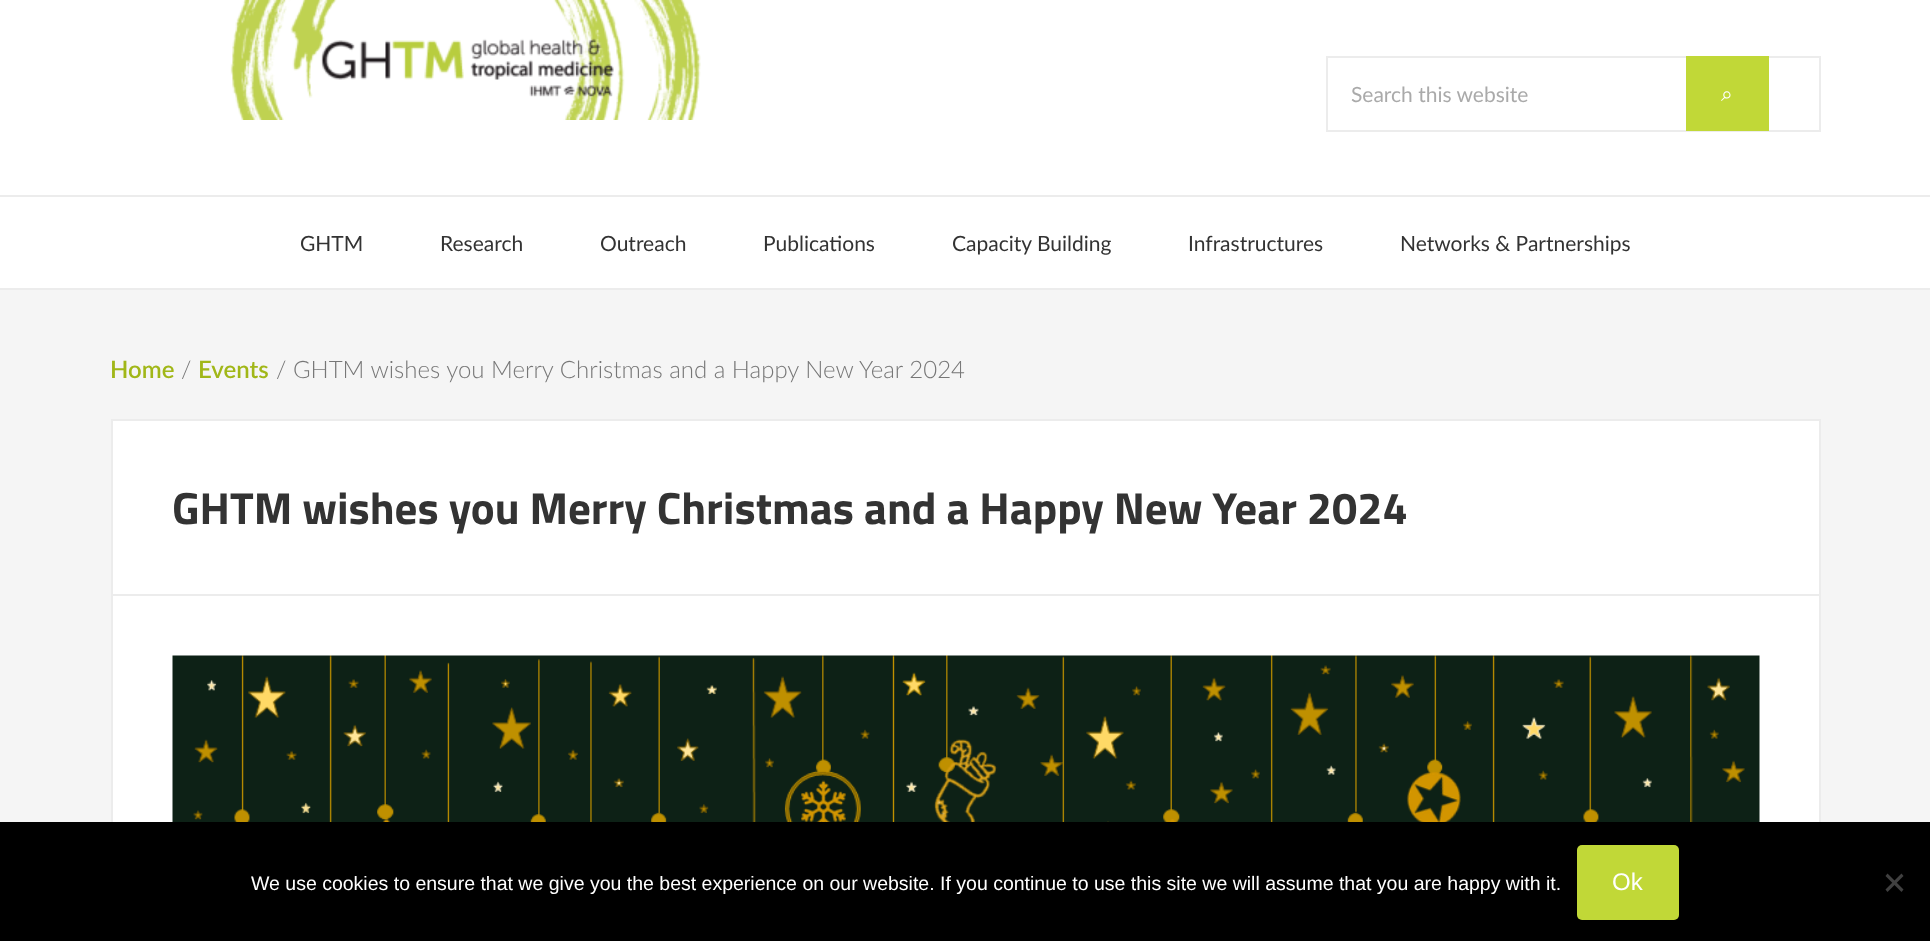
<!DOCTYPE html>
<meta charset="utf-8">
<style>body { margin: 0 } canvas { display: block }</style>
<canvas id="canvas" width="1930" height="941"></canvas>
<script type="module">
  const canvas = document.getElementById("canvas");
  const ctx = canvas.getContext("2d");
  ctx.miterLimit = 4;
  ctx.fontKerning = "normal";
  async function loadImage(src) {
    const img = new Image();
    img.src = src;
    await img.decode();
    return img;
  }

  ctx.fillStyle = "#ffffff";
  ctx.fillRect(0, 0, 1930, 941);
  ctx.fillStyle = "#ececec";
  ctx.fillRect(0, 195, 1930, 2);
  ctx.drawImage(await loadImage("img1.png"), 230, 0, 471, 120);
  ctx.strokeStyle = "#ececec";
  ctx.lineWidth = 2;
  ctx.strokeRect(1327, 57, 493, 74);
  ctx.font = "21px Lato";
  ctx.fillStyle = "#aaaaaa";
  ctx.fillText("Search this website", 1351, 102);
  ctx.fillStyle = "#c1d837";
  ctx.fillRect(1686, 56, 83, 75);
  ctx.font = "21px FreeSerif";
  ctx.fillStyle = "#ffffff";
  ctx.fillText("⌕", 1721, 101);
  ctx.font = "21px Lato";
  ctx.fillStyle = "#333333";
  ctx.fillText("GHTM", 300, 251);
  ctx.fillText("Research", 440, 251);
  ctx.fillText("Outreach", 600, 251);
  ctx.fillText("Publications", 763, 251);
  ctx.fillText("Capacity Building", 952, 251);
  ctx.fillText("Infrastructures", 1188, 251);
  ctx.fillText("Networks & Partnerships", 1400, 251);
  ctx.fillStyle = "#f5f5f5";
  ctx.fillRect(0, 290, 1930, 532);
  ctx.fillStyle = "#ececec";
  ctx.fillRect(0, 288, 1930, 2);
  ctx.font = "600 24px Lato";
  ctx.fillStyle = "#a1b718";
  ctx.fillText("Home", 110, 378);
  ctx.font = "300 24px Lato";
  ctx.fillStyle = "#777777";
  ctx.fillText("/", 181, 378);
  ctx.font = "600 24px Lato";
  ctx.fillStyle = "#a1b718";
  ctx.fillText("Events", 198, 378);
  ctx.font = "300 24px Lato";
  ctx.fillStyle = "#777777";
  ctx.fillText("/ GHTM wishes you Merry Christmas and a Happy New Year 2024", 276, 378);
  ctx.fillStyle = "#ffffff";
  ctx.fillRect(113, 421, 1706, 401);
  ctx.strokeRect(112, 420, 1708, 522);
  ctx.fillStyle = "#ececec";
  ctx.fillRect(113, 594, 1707, 2);
  ctx.font = "bold 45px Titillium Web";
  ctx.fillStyle = "#333333";
  ctx.fillText("GHTM wishes you Merry Christmas and a Happy New Year 2024", 172, 524);
  ctx.drawImage(await loadImage("img2.png"), 172, 655, 1588, 167);
  ctx.fillStyle = "#000000";
  ctx.fillRect(0, 822, 1930, 119);
  ctx.font = "19.5px Liberation Sans";
  ctx.fillStyle = "#ffffff";
  ctx.fillText("We use cookies to ensure that we give you the best experience on our website. If you continue to use this site we will assume that you are happy with it.", 251, 890);
  ctx.fillStyle = "#c1d837";
  ctx.beginPath();
  ctx.roundRect(1577, 845, 102, 75, 5);
  ctx.fill();
  ctx.font = "24px Liberation Sans";
  ctx.fillStyle = "#ffffff";
  ctx.fillText("Ok", 1612, 890);
  ctx.fillStyle = "#404040";
  ctx.beginPath();
  ctx.moveTo(1901.5, 873.5);
  ctx.lineTo(1903.5, 876);
  ctx.lineTo(1887.5, 892);
  ctx.lineTo(1885.5, 889.5);
  ctx.closePath();
  ctx.fill();
  ctx.beginPath();
  ctx.moveTo(1885.5, 876);
  ctx.lineTo(1887.5, 873.5);
  ctx.lineTo(1903.5, 889.5);
  ctx.lineTo(1901.5, 892);
  ctx.closePath();
  ctx.fill();
</script>
